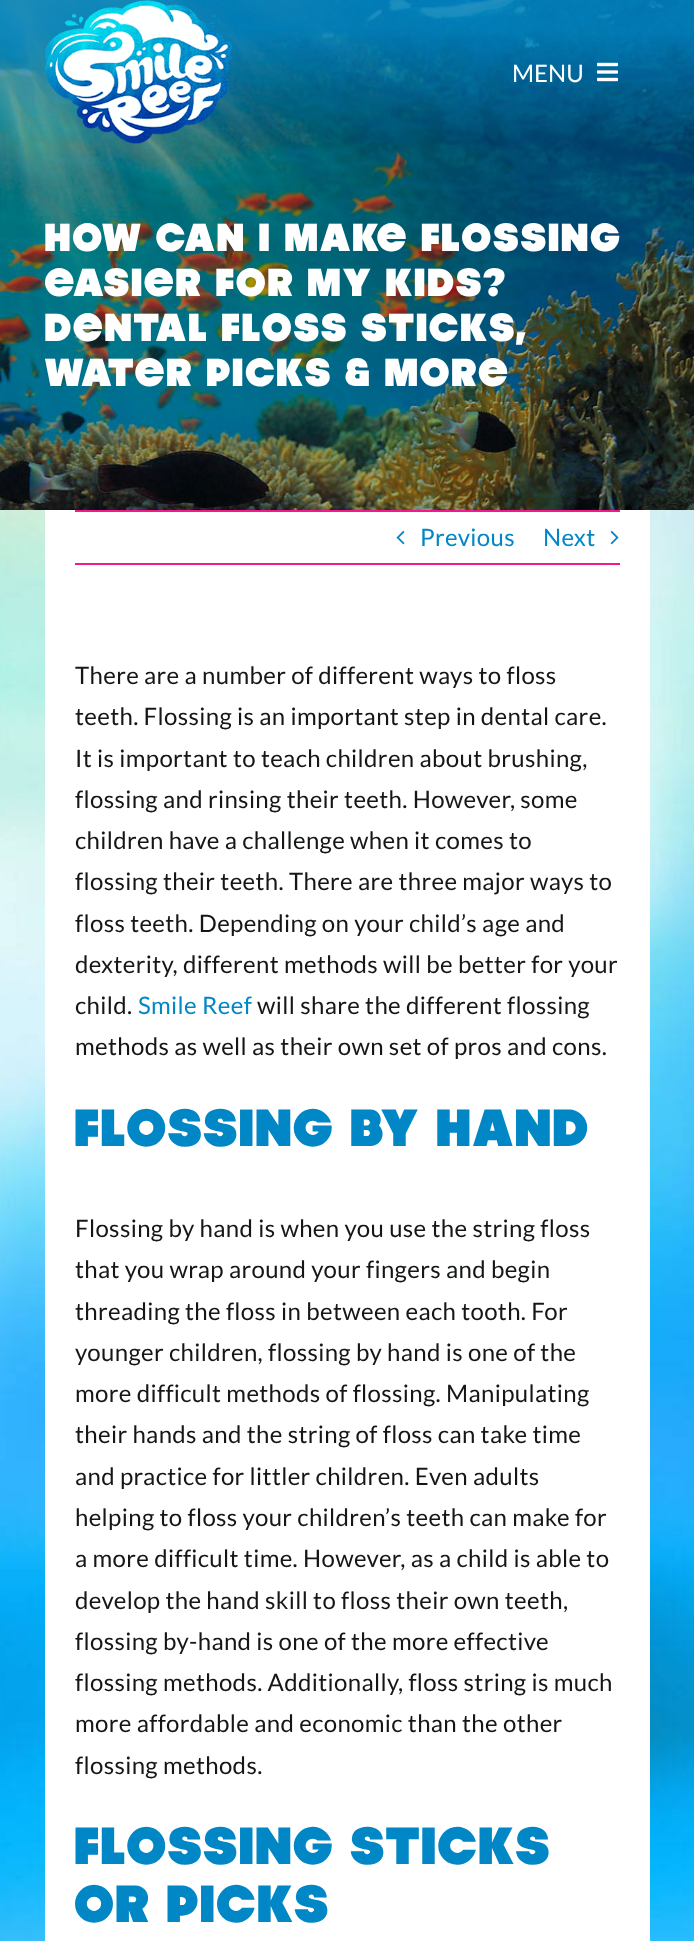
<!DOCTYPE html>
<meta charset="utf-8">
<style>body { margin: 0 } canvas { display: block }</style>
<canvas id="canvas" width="694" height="1941"></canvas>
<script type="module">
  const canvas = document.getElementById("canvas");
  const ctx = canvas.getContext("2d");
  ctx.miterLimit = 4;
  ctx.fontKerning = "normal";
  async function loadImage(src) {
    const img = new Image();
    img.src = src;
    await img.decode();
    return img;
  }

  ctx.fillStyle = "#ffffff";
  ctx.fillRect(0, 0, 694, 1941);
  ctx.drawImage(await loadImage("img3.png"), 0, 0, 694, 510);
  ctx.drawImage(await loadImage("img1.png"), 45, 0, 188, 144);
  ctx.font = "24px Lato";
  ctx.fillText("MENU", 512, 82);
  ctx.drawImage(await loadImage("img2.png"), 597, 62, 21, 20);
  ctx.letterSpacing = "3px";
  ctx.font = "36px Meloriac";
  ctx.fillText("How Can I Make Flossing", 45, 251);
  ctx.fillText("Easier for My Kids?", 45, 296);
  ctx.fillText("Dental Floss Sticks,", 45, 341);
  ctx.fillText("Water Picks & More", 45, 386);
  ctx.drawImage(await loadImage("img4.png"), 0, 510, 694, 1431);
  ctx.fillRect(45, 510, 605, 1431);
  ctx.fillStyle = "#f2198d";
  ctx.fillRect(75, 510, 545, 2);
  ctx.fillRect(75, 563, 545, 2);
  ctx.drawImage(await loadImage("img5.png"), 396, 530, 9, 15);
  ctx.letterSpacing = "0.35px";
  ctx.font = "24px Lato";
  ctx.fillStyle = "#0287c6";
  ctx.fillText("Previous", 420, 546);
  ctx.fillText("Next", 543, 546);
  ctx.drawImage(await loadImage("img6.png"), 610, 530, 9, 15);
  ctx.fillStyle = "#141617";
  ctx.fillText("There are a number of different ways to floss", 75, 684);
  ctx.fillText("teeth. Flossing is an important step in dental care.", 75, 725);
  ctx.fillText("It is important to teach children about brushing,", 75, 767);
  ctx.fillText("flossing and rinsing their teeth. However, some", 75, 808);
  ctx.fillText("children have a challenge when it comes to", 75, 849);
  ctx.fillText("flossing their teeth. There are three major ways to", 75, 890);
  ctx.fillText("floss teeth. Depending on your child’s age and", 75, 932);
  ctx.fillText("dexterity, different methods will be better for your", 75, 973);
  ctx.fillText("child.", 75, 1014);
  ctx.fillStyle = "#0287c6";
  ctx.fillText("Smile Reef", 138, 1014);
  ctx.fillStyle = "#141617";
  ctx.fillText("will share the different flossing", 257, 1014);
  ctx.fillText("methods as well as their own set of pros and cons.", 75, 1055);
  ctx.letterSpacing = "3px";
  ctx.font = "48px Meloriac";
  ctx.fillStyle = "#0287c6";
  ctx.fillText("Flossing By Hand", 75, 1146);
  ctx.letterSpacing = "0.35px";
  ctx.font = "24px Lato";
  ctx.fillStyle = "#141617";
  ctx.fillText("Flossing by hand is when you use the string floss", 75, 1237);
  ctx.fillText("that you wrap around your fingers and begin", 75, 1278);
  ctx.fillText("threading the floss in between each tooth. For", 75, 1320);
  ctx.fillText("younger children, flossing by hand is one of the", 75, 1361);
  ctx.fillText("more difficult methods of flossing. Manipulating", 75, 1402);
  ctx.fillText("their hands and the string of floss can take time", 75, 1443);
  ctx.fillText("and practice for littler children. Even adults", 75, 1485);
  ctx.fillText("helping to floss your children’s teeth can make for", 75, 1526);
  ctx.fillText("a more difficult time. However, as a child is able to", 75, 1567);
  ctx.fillText("develop the hand skill to floss their own teeth,", 75, 1609);
  ctx.fillText("flossing by-hand is one of the more effective", 75, 1650);
  ctx.fillText("flossing methods. Additionally, floss string is much", 75, 1691);
  ctx.fillText("more affordable and economic than the other", 75, 1732);
  ctx.fillText("flossing methods.", 75, 1774);
  ctx.letterSpacing = "3px";
  ctx.font = "48px Meloriac";
  ctx.fillStyle = "#0287c6";
  ctx.fillText("Flossing Sticks", 75, 1864);
  ctx.fillText("or Picks", 75, 1922);
</script>
